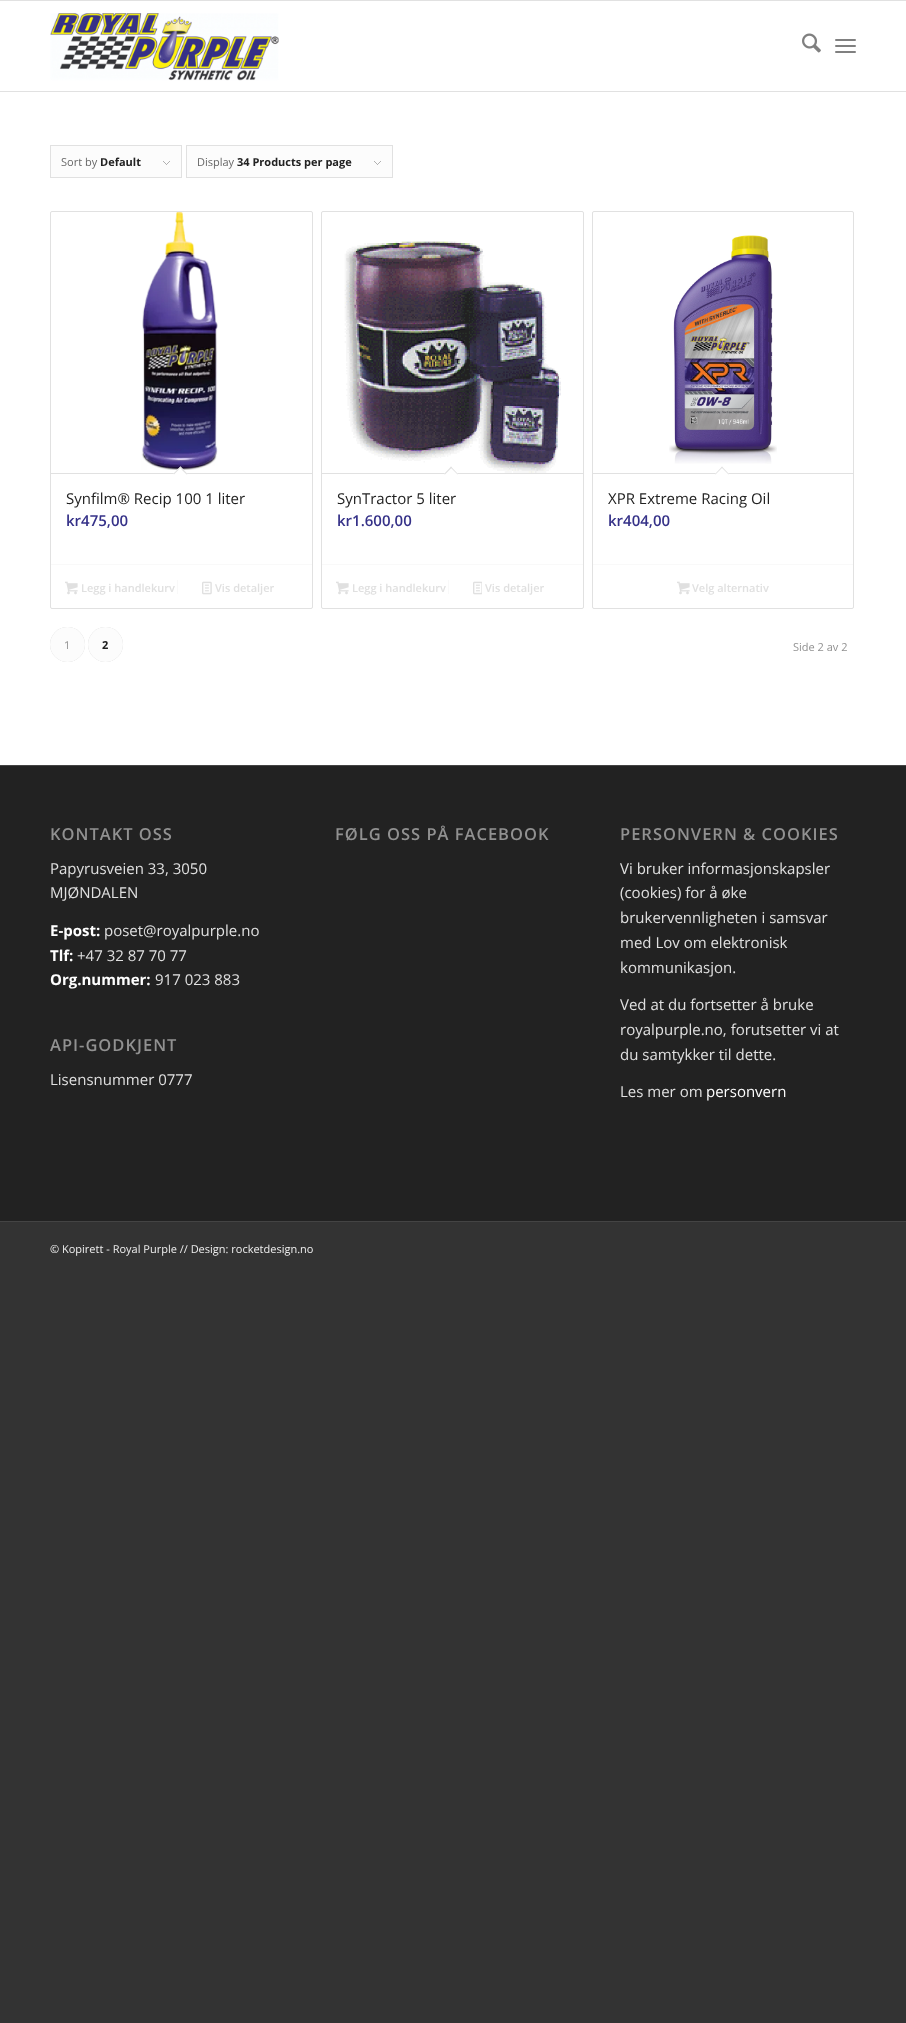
<!DOCTYPE html>
<meta charset="utf-8">
<style>body { margin: 0 } canvas { display: block }</style>
<canvas id="canvas" width="906" height="2023"></canvas>
<script type="module">
  const canvas = document.getElementById("canvas");
  const ctx = canvas.getContext("2d");
  ctx.miterLimit = 4;
  ctx.fontKerning = "normal";
  async function loadImage(src) {
    const img = new Image();
    img.src = src;
    await img.decode();
    return img;
  }

  ctx.fillStyle = "#333333";
  ctx.fillRect(0, 0, 906, 2023);
  ctx.fillStyle = "#ffffff";
  ctx.fillRect(0, 1, 906, 764);
  ctx.fillStyle = "#e1e1e1";
  ctx.fillRect(0, 0, 906, 1);
  ctx.fillRect(0, 91, 906, 1);
  ctx.drawImage(await loadImage("img1.png"), 50, 13, 229, 68);
  ctx.drawImage(await loadImage("img2.png"), 802, 33, 19, 20);
  ctx.fillStyle = "#808080";
  ctx.beginPath();
  ctx.roundRect(835, 45, 21, 2, 1);
  ctx.fill();
  ctx.beginPath();
  ctx.roundRect(835, 39, 21, 2, 1);
  ctx.fill();
  ctx.beginPath();
  ctx.roundRect(835, 51, 21, 2, 1);
  ctx.fill();
  ctx.fillStyle = "#fcfcfc";
  ctx.fillRect(51, 146, 130, 31);
  ctx.drawImage(await loadImage("img3.png"), 163, 161, 7, 4);
  ctx.strokeStyle = "#e1e1e1";
  ctx.strokeRect(50.5, 145.5, 131, 32);
  ctx.font = "11px Open Sans";
  ctx.fillStyle = "#666666";
  ctx.fillText("Sort by", 61, 166);
  ctx.font = "bold 11px Open Sans";
  ctx.fillStyle = "#222222";
  ctx.fillText("Default", 100, 166);
  ctx.fillStyle = "#fcfcfc";
  ctx.fillRect(187, 146, 205, 31);
  ctx.drawImage(await loadImage("img3.png"), 374, 161, 7, 4);
  ctx.strokeRect(186.5, 145.5, 206, 32);
  ctx.font = "11px Open Sans";
  ctx.fillStyle = "#666666";
  ctx.fillText("Display", 197, 166);
  ctx.font = "bold 11px Open Sans";
  ctx.fillStyle = "#222222";
  ctx.fillText("34 Products per page", 237, 166);
  ctx.beginPath();
  ctx.roundRect(50.5, 211.5, 262, 397, 1.5);
  ctx.stroke();
  ctx.drawImage(await loadImage("img4.png"), 141, 212, 77, 258);
  ctx.fillStyle = "#e1e1e1";
  ctx.fillRect(51, 473, 261, 1);
  ctx.fillStyle = "#ffffff";
  ctx.beginPath();
  ctx.moveTo(180.5, 466.5);
  ctx.lineTo(187.5, 474);
  ctx.lineTo(180.5, 481);
  ctx.lineTo(173.5, 473.5);
  ctx.closePath();
  ctx.fill();
  ctx.fillStyle = "#e1e1e1";
  ctx.beginPath();
  ctx.moveTo(180.5, 466.5);
  ctx.lineTo(187.5, 474);
  ctx.lineTo(186.5, 474.5);
  ctx.lineTo(179.5, 467.5);
  ctx.closePath();
  ctx.fill();
  ctx.beginPath();
  ctx.moveTo(180.5, 466.5);
  ctx.lineTo(181, 467.5);
  ctx.lineTo(174, 474.5);
  ctx.lineTo(173.5, 473.5);
  ctx.closePath();
  ctx.fill();
  ctx.font = "15px Open Sans";
  ctx.fillStyle = "#222222";
  ctx.fillText("Synfilm® Recip 100 1 liter", 66, 504);
  ctx.font = "600 15px Open Sans";
  ctx.fillStyle = "#353188";
  ctx.fillText("kr475,00", 66, 526);
  ctx.fillStyle = "#f9f9f9";
  ctx.fillRect(51, 564, 261, 1);
  ctx.drawImage(await loadImage("img5.png"), 65, 581, 13, 14);
  ctx.font = "600 11px Open Sans";
  ctx.fillStyle = "#e0e0e0";
  ctx.fillText("Legg i handlekurv", 81, 592);
  ctx.fillStyle = "#f9f9f9";
  ctx.fillRect(177, 580, 1, 14);
  ctx.drawImage(await loadImage("img6.png"), 202, 581, 10, 14);
  ctx.fillStyle = "#e0e0e0";
  ctx.fillText("Vis detaljer", 215, 592);
  ctx.beginPath();
  ctx.roundRect(321.5, 211.5, 262, 397, 1.5);
  ctx.stroke();
  ctx.drawImage(await loadImage("img7.png"), 344, 241, 217, 232);
  ctx.fillStyle = "#e1e1e1";
  ctx.fillRect(322, 473, 261, 1);
  ctx.fillStyle = "#ffffff";
  ctx.beginPath();
  ctx.moveTo(451, 466.5);
  ctx.lineTo(458, 474);
  ctx.lineTo(451, 481);
  ctx.lineTo(444, 474);
  ctx.closePath();
  ctx.fill();
  ctx.fillStyle = "#e1e1e1";
  ctx.beginPath();
  ctx.moveTo(451, 466.5);
  ctx.lineTo(458, 474);
  ctx.lineTo(457.5, 474.5);
  ctx.lineTo(450.5, 467.5);
  ctx.closePath();
  ctx.fill();
  ctx.beginPath();
  ctx.moveTo(451, 466.5);
  ctx.lineTo(452, 467.5);
  ctx.lineTo(445, 474.5);
  ctx.lineTo(444, 474);
  ctx.closePath();
  ctx.fill();
  ctx.font = "15px Open Sans";
  ctx.fillStyle = "#222222";
  ctx.fillText("SynTractor 5 liter", 337, 504);
  ctx.font = "600 15px Open Sans";
  ctx.fillStyle = "#353188";
  ctx.fillText("kr1.600,00", 337, 526);
  ctx.fillStyle = "#f9f9f9";
  ctx.fillRect(322, 564, 261, 1);
  ctx.drawImage(await loadImage("img5.png"), 336, 581, 13, 14);
  ctx.font = "600 11px Open Sans";
  ctx.fillStyle = "#e0e0e0";
  ctx.fillText("Legg i handlekurv", 352, 592);
  ctx.fillStyle = "#f9f9f9";
  ctx.fillRect(448, 580, 1, 14);
  ctx.drawImage(await loadImage("img8.png"), 473, 581, 9, 14);
  ctx.fillStyle = "#e0e0e0";
  ctx.fillText("Vis detaljer", 485, 592);
  ctx.beginPath();
  ctx.roundRect(592.5, 211.5, 261, 397, 1.5);
  ctx.stroke();
  ctx.drawImage(await loadImage("img9.png"), 669, 235, 108, 229);
  ctx.fillStyle = "#e1e1e1";
  ctx.fillRect(593, 473, 260, 1);
  ctx.fillStyle = "#ffffff";
  ctx.beginPath();
  ctx.moveTo(722, 466.5);
  ctx.lineTo(729, 474);
  ctx.lineTo(722, 481);
  ctx.lineTo(715, 474);
  ctx.closePath();
  ctx.fill();
  ctx.fillStyle = "#e1e1e1";
  ctx.beginPath();
  ctx.moveTo(722, 466.5);
  ctx.lineTo(729, 474);
  ctx.lineTo(728.5, 474.5);
  ctx.lineTo(721.5, 467.5);
  ctx.closePath();
  ctx.fill();
  ctx.beginPath();
  ctx.moveTo(722, 466.5);
  ctx.lineTo(722.5, 467.5);
  ctx.lineTo(715.5, 474.5);
  ctx.lineTo(715, 474);
  ctx.closePath();
  ctx.fill();
  ctx.font = "15px Open Sans";
  ctx.fillStyle = "#222222";
  ctx.fillText("XPR Extreme Racing Oil", 608, 504);
  ctx.font = "600 15px Open Sans";
  ctx.fillStyle = "#353188";
  ctx.fillText("kr404,00", 608, 526);
  ctx.fillStyle = "#f9f9f9";
  ctx.fillRect(593, 564, 260, 1);
  ctx.drawImage(await loadImage("img5.png"), 677, 581, 13, 14);
  ctx.font = "600 11px Open Sans";
  ctx.fillStyle = "#e0e0e0";
  ctx.fillText("Velg alternativ", 692, 592);
  ctx.fillStyle = "rgba(0, 0, 0, 0.2)";
  ctx.filter = "blur(0.5px)";
  ctx.beginPath();
  ctx.roundRect(50, 627, 35, 35, 17.5);
  ctx.fill();
  ctx.filter = "none";
  ctx.fillStyle = "#fcfcfc";
  ctx.beginPath();
  ctx.arc(67.5, 644.5, 17.5, 0, Math.PI * 2);
  ctx.fill();
  ctx.font = "11px Open Sans";
  ctx.fillStyle = "#919191";
  ctx.fillText("1", 64, 649);
  ctx.fillStyle = "rgba(0, 0, 0, 0.2)";
  ctx.filter = "blur(0.5px)";
  ctx.beginPath();
  ctx.roundRect(88, 627, 35, 35, 17.5);
  ctx.fill();
  ctx.filter = "none";
  ctx.fillStyle = "#fcfcfc";
  ctx.beginPath();
  ctx.arc(105.5, 644.5, 17.5, 0, Math.PI * 2);
  ctx.fill();
  ctx.font = "bold 11px Open Sans";
  ctx.fillStyle = "#222222";
  ctx.fillText("2", 102, 649);
  ctx.font = "11px Open Sans";
  ctx.fillStyle = "#919191";
  ctx.fillText("Side 2 av 2", 793, 651);
  ctx.fillStyle = "#222222";
  ctx.fillRect(0, 766, 906, 455);
  ctx.fillStyle = "#444444";
  ctx.fillRect(0, 765, 906, 1);
  ctx.letterSpacing = "1px";
  ctx.font = "600 16.5px Open Sans";
  ctx.fillStyle = "#919191";
  ctx.fillText("KONTAKT OSS", 50, 840);
  ctx.letterSpacing = "0px";
  ctx.font = "15px Open Sans";
  ctx.fillStyle = "#e0e0e0";
  ctx.fillText("Papyrusveien 33, 3050", 50, 874);
  ctx.fillText("MJØNDALEN", 50, 898);
  ctx.font = "bold 15px Open Sans";
  ctx.fillStyle = "#ffffff";
  ctx.fillText("E-post:", 50, 936);
  ctx.font = "15px Open Sans";
  ctx.fillStyle = "#e0e0e0";
  ctx.fillText("poset@royalpurple.no", 104, 936);
  ctx.font = "bold 15px Open Sans";
  ctx.fillStyle = "#ffffff";
  ctx.fillText("Tlf:", 50, 961);
  ctx.font = "15px Open Sans";
  ctx.fillStyle = "#e0e0e0";
  ctx.fillText("+47 32 87 70 77", 77, 961);
  ctx.font = "bold 15px Open Sans";
  ctx.fillStyle = "#ffffff";
  ctx.fillText("Org.nummer:", 50, 985);
  ctx.font = "15px Open Sans";
  ctx.fillStyle = "#e0e0e0";
  ctx.fillText("917 023 883", 155, 985);
  ctx.letterSpacing = "1px";
  ctx.font = "600 16.5px Open Sans";
  ctx.fillStyle = "#919191";
  ctx.fillText("API-GODKJENT", 50, 1051);
  ctx.letterSpacing = "0px";
  ctx.font = "15px Open Sans";
  ctx.fillStyle = "#e0e0e0";
  ctx.fillText("Lisensnummer 0777", 50, 1085);
  ctx.letterSpacing = "1px";
  ctx.font = "600 16.5px Open Sans";
  ctx.fillStyle = "#919191";
  ctx.fillText("FØLG OSS PÅ FACEBOOK", 335, 840);
  ctx.fillText("PERSONVERN & COOKIES", 620, 840);
  ctx.letterSpacing = "0px";
  ctx.font = "15px Open Sans";
  ctx.fillStyle = "#e0e0e0";
  ctx.fillText("Vi bruker informasjonskapsler", 620, 874);
  ctx.fillText("(cookies) for å øke", 620, 898);
  ctx.fillText("brukervennligheten i samsvar", 620, 923);
  ctx.fillText("med Lov om elektronisk", 620, 948);
  ctx.fillText("kommunikasjon.", 620, 973);
  ctx.fillText("Ved at du fortsetter å bruke", 620, 1010);
  ctx.fillText("royalpurple.no, forutsetter vi at", 620, 1035);
  ctx.fillText("du samtykker til dette.", 620, 1060);
  ctx.fillText("Les mer om", 620, 1097);
  ctx.fillStyle = "#ffffff";
  ctx.fillText("personvern", 706, 1097);
  ctx.fillStyle = "#444444";
  ctx.fillRect(0, 1221, 906, 1);
  ctx.font = "11px Open Sans";
  ctx.fillStyle = "#eeeeee";
  ctx.fillText("© Kopirett - Royal Purple // Design: rocketdesign.no", 50, 1253);
</script>
